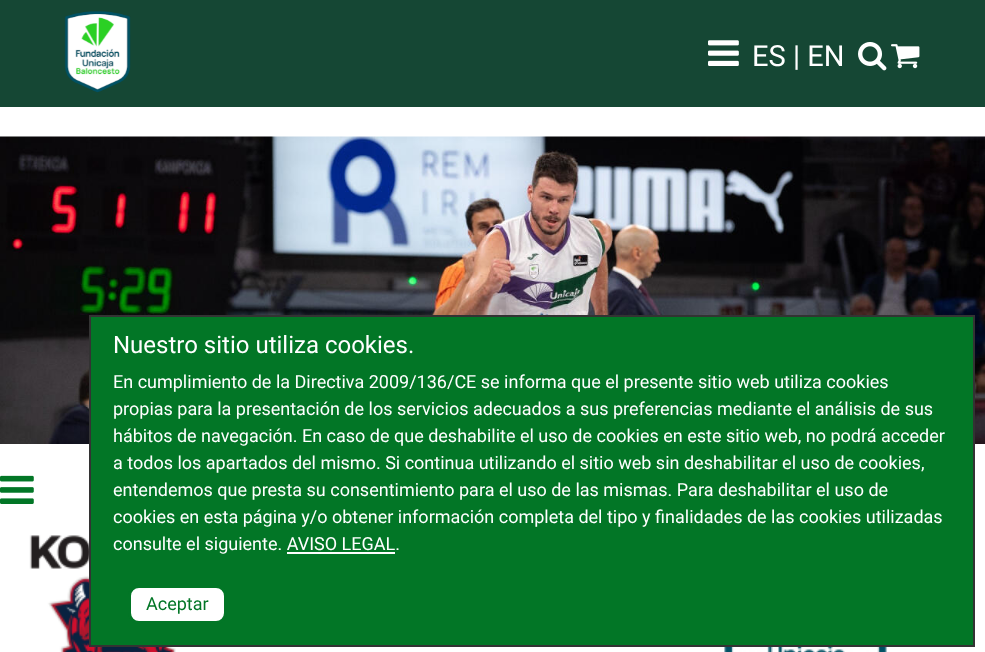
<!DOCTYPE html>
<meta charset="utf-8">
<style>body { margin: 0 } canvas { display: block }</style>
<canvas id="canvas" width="985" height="652"></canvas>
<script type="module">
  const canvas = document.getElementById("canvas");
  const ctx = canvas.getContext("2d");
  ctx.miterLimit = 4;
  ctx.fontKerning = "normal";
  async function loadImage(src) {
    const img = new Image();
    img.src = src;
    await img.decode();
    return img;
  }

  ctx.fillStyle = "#ffffff";
  ctx.fillRect(0, 0, 985, 652);
  ctx.fillStyle = "#154734";
  ctx.fillRect(0, 0, 985, 107);
  ctx.drawImage(await loadImage("img1.png"), 64, 11, 67, 82);
  ctx.drawImage(await loadImage("img2.png"), 708, 40, 31, 26);
  ctx.font = "29px Roboto";
  ctx.fillStyle = "#ffffff";
  ctx.fillText("ES | EN", 752, 66);
  ctx.drawImage(await loadImage("img3.png"), 858, 42, 29, 29);
  ctx.drawImage(await loadImage("img4.png"), 891, 44, 29, 25);
  ctx.drawImage(await loadImage("img5.png"), 0, 136, 985, 308);
  ctx.drawImage(await loadImage("img6.png"), 0, 475, 34, 29);
  ctx.drawImage(await loadImage("img7.png"), 29, 535, 179, 117);
  ctx.drawImage(await loadImage("img8.png"), 724, 647, 163, 5);
  ctx.fillStyle = "#027626";
  ctx.beginPath();
  ctx.rect(90, 316, 884, 330);
  ctx.fill();
  ctx.strokeStyle = "#333333";
  ctx.lineWidth = 2;
  ctx.stroke();
  ctx.font = "24px Roboto";
  ctx.fillStyle = "#ffffff";
  ctx.fillText("Nuestro sitio utiliza cookies.", 113, 353);
  ctx.font = "18px Roboto";
  ctx.fillText("En cumplimiento de la Directiva 2009/136/CE se informa que el presente sitio web utiliza cookies", 113, 388);
  ctx.fillText("propias para la presentación de los servicios adecuados a sus preferencias mediante el análisis de sus", 113, 415);
  ctx.fillText("hábitos de navegación. En caso de que deshabilite el uso de cookies en este sitio web, no podrá acceder", 113, 442);
  ctx.fillText("a todos los apartados del mismo. Si continua utilizando el sitio web sin deshabilitar el uso de cookies,", 113, 469);
  ctx.fillText("entendemos que presta su consentimiento para el uso de las mismas. Para deshabilitar el uso de", 113, 496);
  ctx.fillText("cookies en esta página y/o obtener información completa del tipo y finalidades de las cookies utilizadas", 113, 523);
  ctx.fillText("consulte el siguiente. AVISO LEGAL.", 113, 550);
  ctx.fillRect(287, 552, 108, 2);
  ctx.beginPath();
  ctx.roundRect(129.5, 586.5, 96, 36, 9.5);
  ctx.fill();
  ctx.strokeStyle = "#027626";
  ctx.lineWidth = 3;
  ctx.stroke();
  ctx.fillStyle = "#027626";
  ctx.fillText("Aceptar", 146, 610);
</script>
